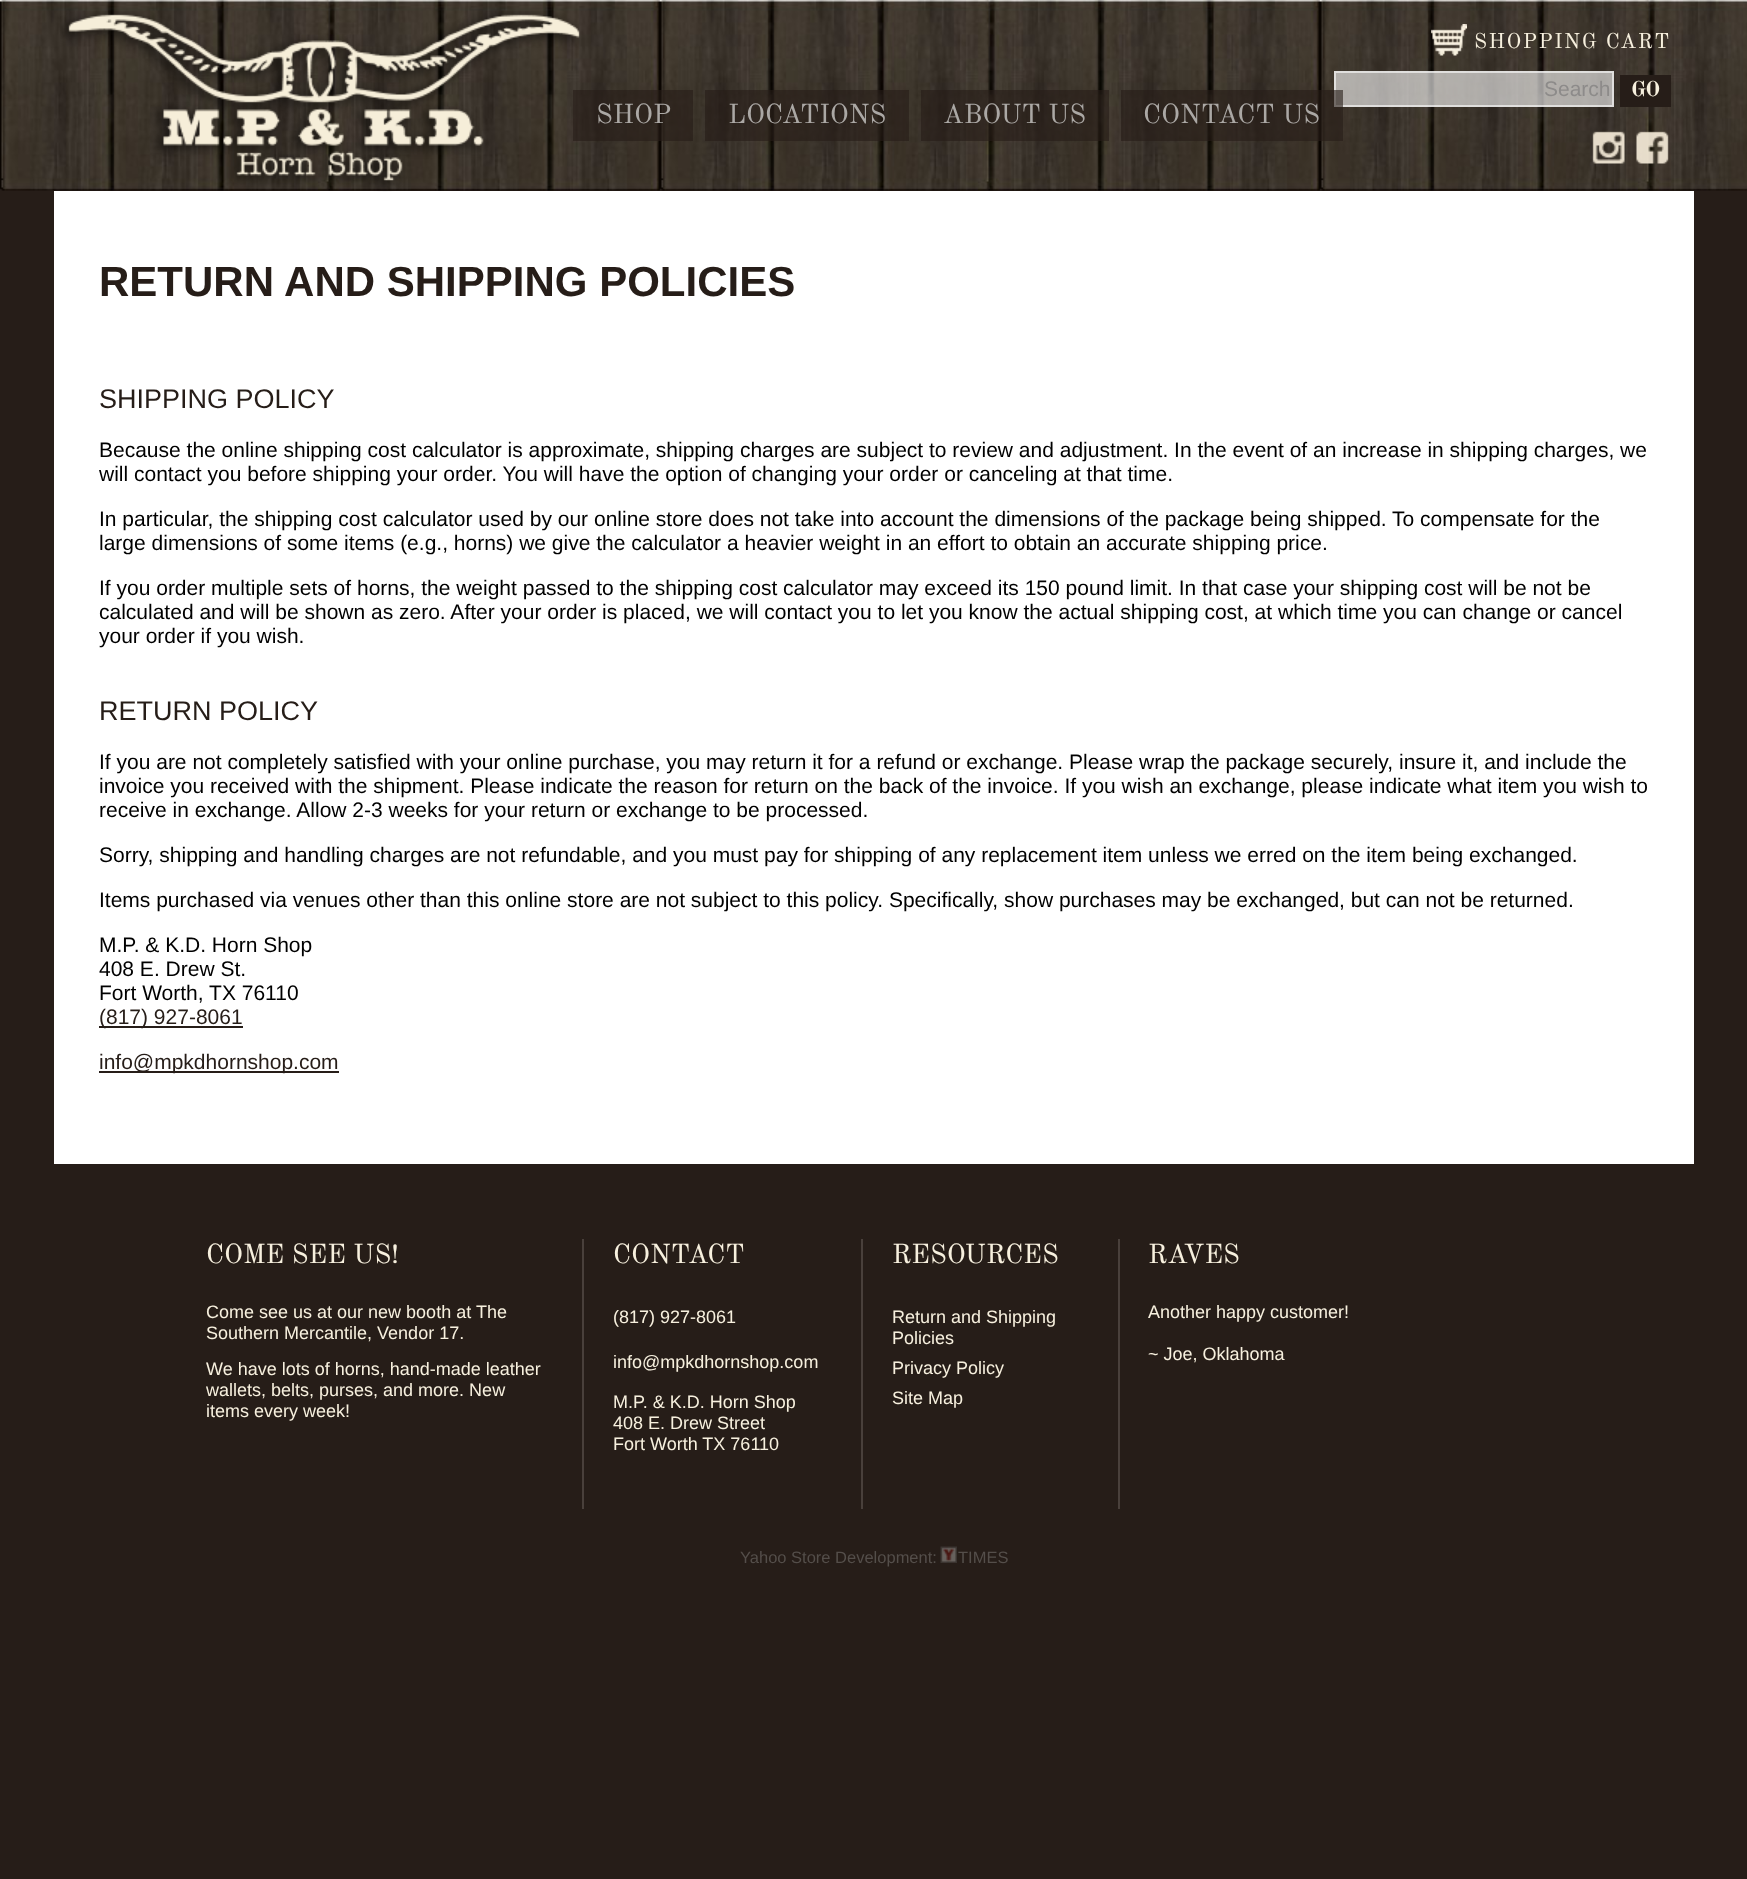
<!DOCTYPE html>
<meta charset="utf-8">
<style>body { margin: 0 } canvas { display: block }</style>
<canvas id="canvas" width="1747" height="1879"></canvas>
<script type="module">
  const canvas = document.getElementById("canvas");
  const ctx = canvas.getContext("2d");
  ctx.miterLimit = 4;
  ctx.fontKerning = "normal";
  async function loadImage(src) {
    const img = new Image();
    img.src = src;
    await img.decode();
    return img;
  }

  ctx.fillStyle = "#261d18";
  ctx.fillRect(0, 0, 1747, 1879);
  ctx.drawImage(await loadImage("img1.png"), 0, 0, 1747, 191);
  ctx.fillStyle = "#ffffff";
  ctx.fillRect(54, 191, 1640, 973);
  ctx.drawImage(await loadImage("img2.png"), 60, 11, 520, 181);
  ctx.drawImage(await loadImage("img3.png"), 1431, 24, 36, 32);
  ctx.letterSpacing = "1.5px";
  ctx.font = "21px Old Standard TT";
  ctx.fillStyle = "#f7f0de";
  ctx.fillText("SHOPPING CART", 1474, 48);
  ctx.fillStyle = "rgba(255, 255, 255, 0.6)";
  ctx.fillRect(1334, 71, 280, 36);
  ctx.strokeStyle = "rgba(255, 255, 255, 0.6)";
  ctx.lineWidth = 2;
  ctx.strokeRect(1335, 72, 278, 34);
  ctx.letterSpacing = "0px";
  ctx.font = "21px Liberation Sans";
  ctx.fillStyle = "#8d8b8a";
  ctx.fillText("Search", 1544, 96);
  ctx.fillStyle = "#261d18";
  ctx.fillRect(1620, 75, 51, 32);
  ctx.font = "bold 21px Old Standard TT";
  ctx.fillStyle = "#f7f0de";
  ctx.fillText("GO", 1631, 96);
  ctx.fillStyle = "rgba(38, 29, 24, 0.6)";
  ctx.fillRect(573, 90, 120, 51);
  ctx.font = "27px Old Standard TT";
  ctx.fillStyle = "#aba8a5";
  ctx.fillText("SHOP", 596, 123);
  ctx.fillStyle = "rgba(38, 29, 24, 0.6)";
  ctx.fillRect(705, 90, 204, 51);
  ctx.fillStyle = "#aba8a5";
  ctx.fillText("LOCATIONS", 728, 123);
  ctx.fillStyle = "rgba(38, 29, 24, 0.6)";
  ctx.fillRect(921, 90, 188, 51);
  ctx.fillStyle = "#aba8a5";
  ctx.fillText("ABOUT US", 943, 123);
  ctx.fillStyle = "rgba(38, 29, 24, 0.6)";
  ctx.fillRect(1121, 90, 222, 51);
  ctx.fillStyle = "#aba8a5";
  ctx.fillText("CONTACT US", 1143, 123);
  ctx.drawImage(await loadImage("img4.png"), 1592, 131, 33, 33);
  ctx.drawImage(await loadImage("img5.png"), 1636, 131, 33, 33);
  ctx.font = "bold 42px Liberation Sans";
  ctx.fillStyle = "#261d18";
  ctx.fillText("RETURN AND SHIPPING POLICIES", 99, 296);
  ctx.font = "27px Liberation Sans";
  ctx.fillText("SHIPPING POLICY", 99, 408);
  ctx.font = "21px Liberation Sans";
  ctx.fillStyle = "#000000";
  ctx.fillText("Because the online shipping cost calculator is approximate, shipping charges are subject to review and adjustment. In the event of an increase in shipping charges, we", 99, 457);
  ctx.fillText("will contact you before shipping your order. You will have the option of changing your order or canceling at that time.", 99, 481);
  ctx.fillText("In particular, the shipping cost calculator used by our online store does not take into account the dimensions of the package being shipped. To compensate for the", 99, 526);
  ctx.fillText("large dimensions of some items (e.g., horns) we give the calculator a heavier weight in an effort to obtain an accurate shipping price.", 99, 550);
  ctx.fillText("If you order multiple sets of horns, the weight passed to the shipping cost calculator may exceed its 150 pound limit. In that case your shipping cost will be not be", 99, 595);
  ctx.fillText("calculated and will be shown as zero. After your order is placed, we will contact you to let you know the actual shipping cost, at which time you can change or cancel", 99, 619);
  ctx.fillText("your order if you wish.", 99, 643);
  ctx.font = "27px Liberation Sans";
  ctx.fillStyle = "#261d18";
  ctx.fillText("RETURN POLICY", 99, 720);
  ctx.font = "21px Liberation Sans";
  ctx.fillStyle = "#000000";
  ctx.fillText("If you are not completely satisfied with your online purchase, you may return it for a refund or exchange. Please wrap the package securely, insure it, and include the", 99, 769);
  ctx.fillText("invoice you received with the shipment. Please indicate the reason for return on the back of the invoice. If you wish an exchange, please indicate what item you wish to", 99, 793);
  ctx.fillText("receive in exchange. Allow 2-3 weeks for your return or exchange to be processed.", 99, 817);
  ctx.fillText("Sorry, shipping and handling charges are not refundable, and you must pay for shipping of any replacement item unless we erred on the item being exchanged.", 99, 862);
  ctx.fillText("Items purchased via venues other than this online store are not subject to this policy. Specifically, show purchases may be exchanged, but can not be returned.", 99, 907);
  ctx.fillText("M.P. & K.D. Horn Shop", 99, 952);
  ctx.fillText("408 E. Drew St.", 99, 976);
  ctx.fillText("Fort Worth, TX 76110", 99, 1000);
  ctx.fillStyle = "#261d18";
  ctx.fillRect(99, 1026, 144, 2);
  ctx.fillText("(817) 927-8061", 99, 1024);
  ctx.fillRect(99, 1071, 240, 2);
  ctx.fillText("info@mpkdhornshop.com", 99, 1069);
  ctx.font = "27px Old Standard TT";
  ctx.fillStyle = "#f7f0de";
  ctx.fillText("COME SEE US!", 206, 1263);
  ctx.font = "18px Liberation Sans";
  ctx.fillText("Come see us at our new booth at", 206, 1318);
  ctx.fillText("The", 476, 1318);
  ctx.fillText("Southern Mercantile, Vendor 17.", 206, 1339);
  ctx.fillText("We have lots of horns, hand-made leather", 206, 1375);
  ctx.fillText("wallets, belts, purses, and more. New", 206, 1396);
  ctx.fillText("items every week!", 206, 1417);
  ctx.fillStyle = "#49403b";
  ctx.fillRect(582, 1239, 2, 270);
  ctx.font = "27px Old Standard TT";
  ctx.fillStyle = "#f7f0de";
  ctx.fillText("CONTACT", 613, 1263);
  ctx.font = "18px Liberation Sans";
  ctx.fillText("(817) 927-8061", 613, 1323);
  ctx.fillText("info@mpkdhornshop.com", 613, 1368);
  ctx.fillText("M.P. & K.D. Horn Shop", 613, 1408);
  ctx.fillText("408 E. Drew Street", 613, 1429);
  ctx.fillText("Fort Worth TX 76110", 613, 1450);
  ctx.fillStyle = "#49403b";
  ctx.fillRect(861, 1239, 2, 270);
  ctx.font = "27px Old Standard TT";
  ctx.fillStyle = "#f7f0de";
  ctx.fillText("RESOURCES", 892, 1263);
  ctx.font = "18px Liberation Sans";
  ctx.fillText("Return and Shipping", 892, 1323);
  ctx.fillText("Policies", 892, 1344);
  ctx.fillText("Privacy Policy", 892, 1374);
  ctx.fillText("Site Map", 892, 1404);
  ctx.fillStyle = "#49403b";
  ctx.fillRect(1118, 1239, 2, 270);
  ctx.font = "27px Old Standard TT";
  ctx.fillStyle = "#f7f0de";
  ctx.fillText("RAVES", 1148, 1263);
  ctx.font = "18px Liberation Sans";
  ctx.fillText("Another happy customer!", 1148, 1318);
  ctx.fillText("~ Joe, Oklahoma", 1148, 1360);
  ctx.font = "16.5px Liberation Sans";
  ctx.fillStyle = "#544e4a";
  ctx.fillText("Yahoo Store Development:", 740, 1563);
  ctx.drawImage(await loadImage("img6.png"), 940, 1546, 17, 17);
  ctx.fillText("TIMES", 958, 1563);
</script>
